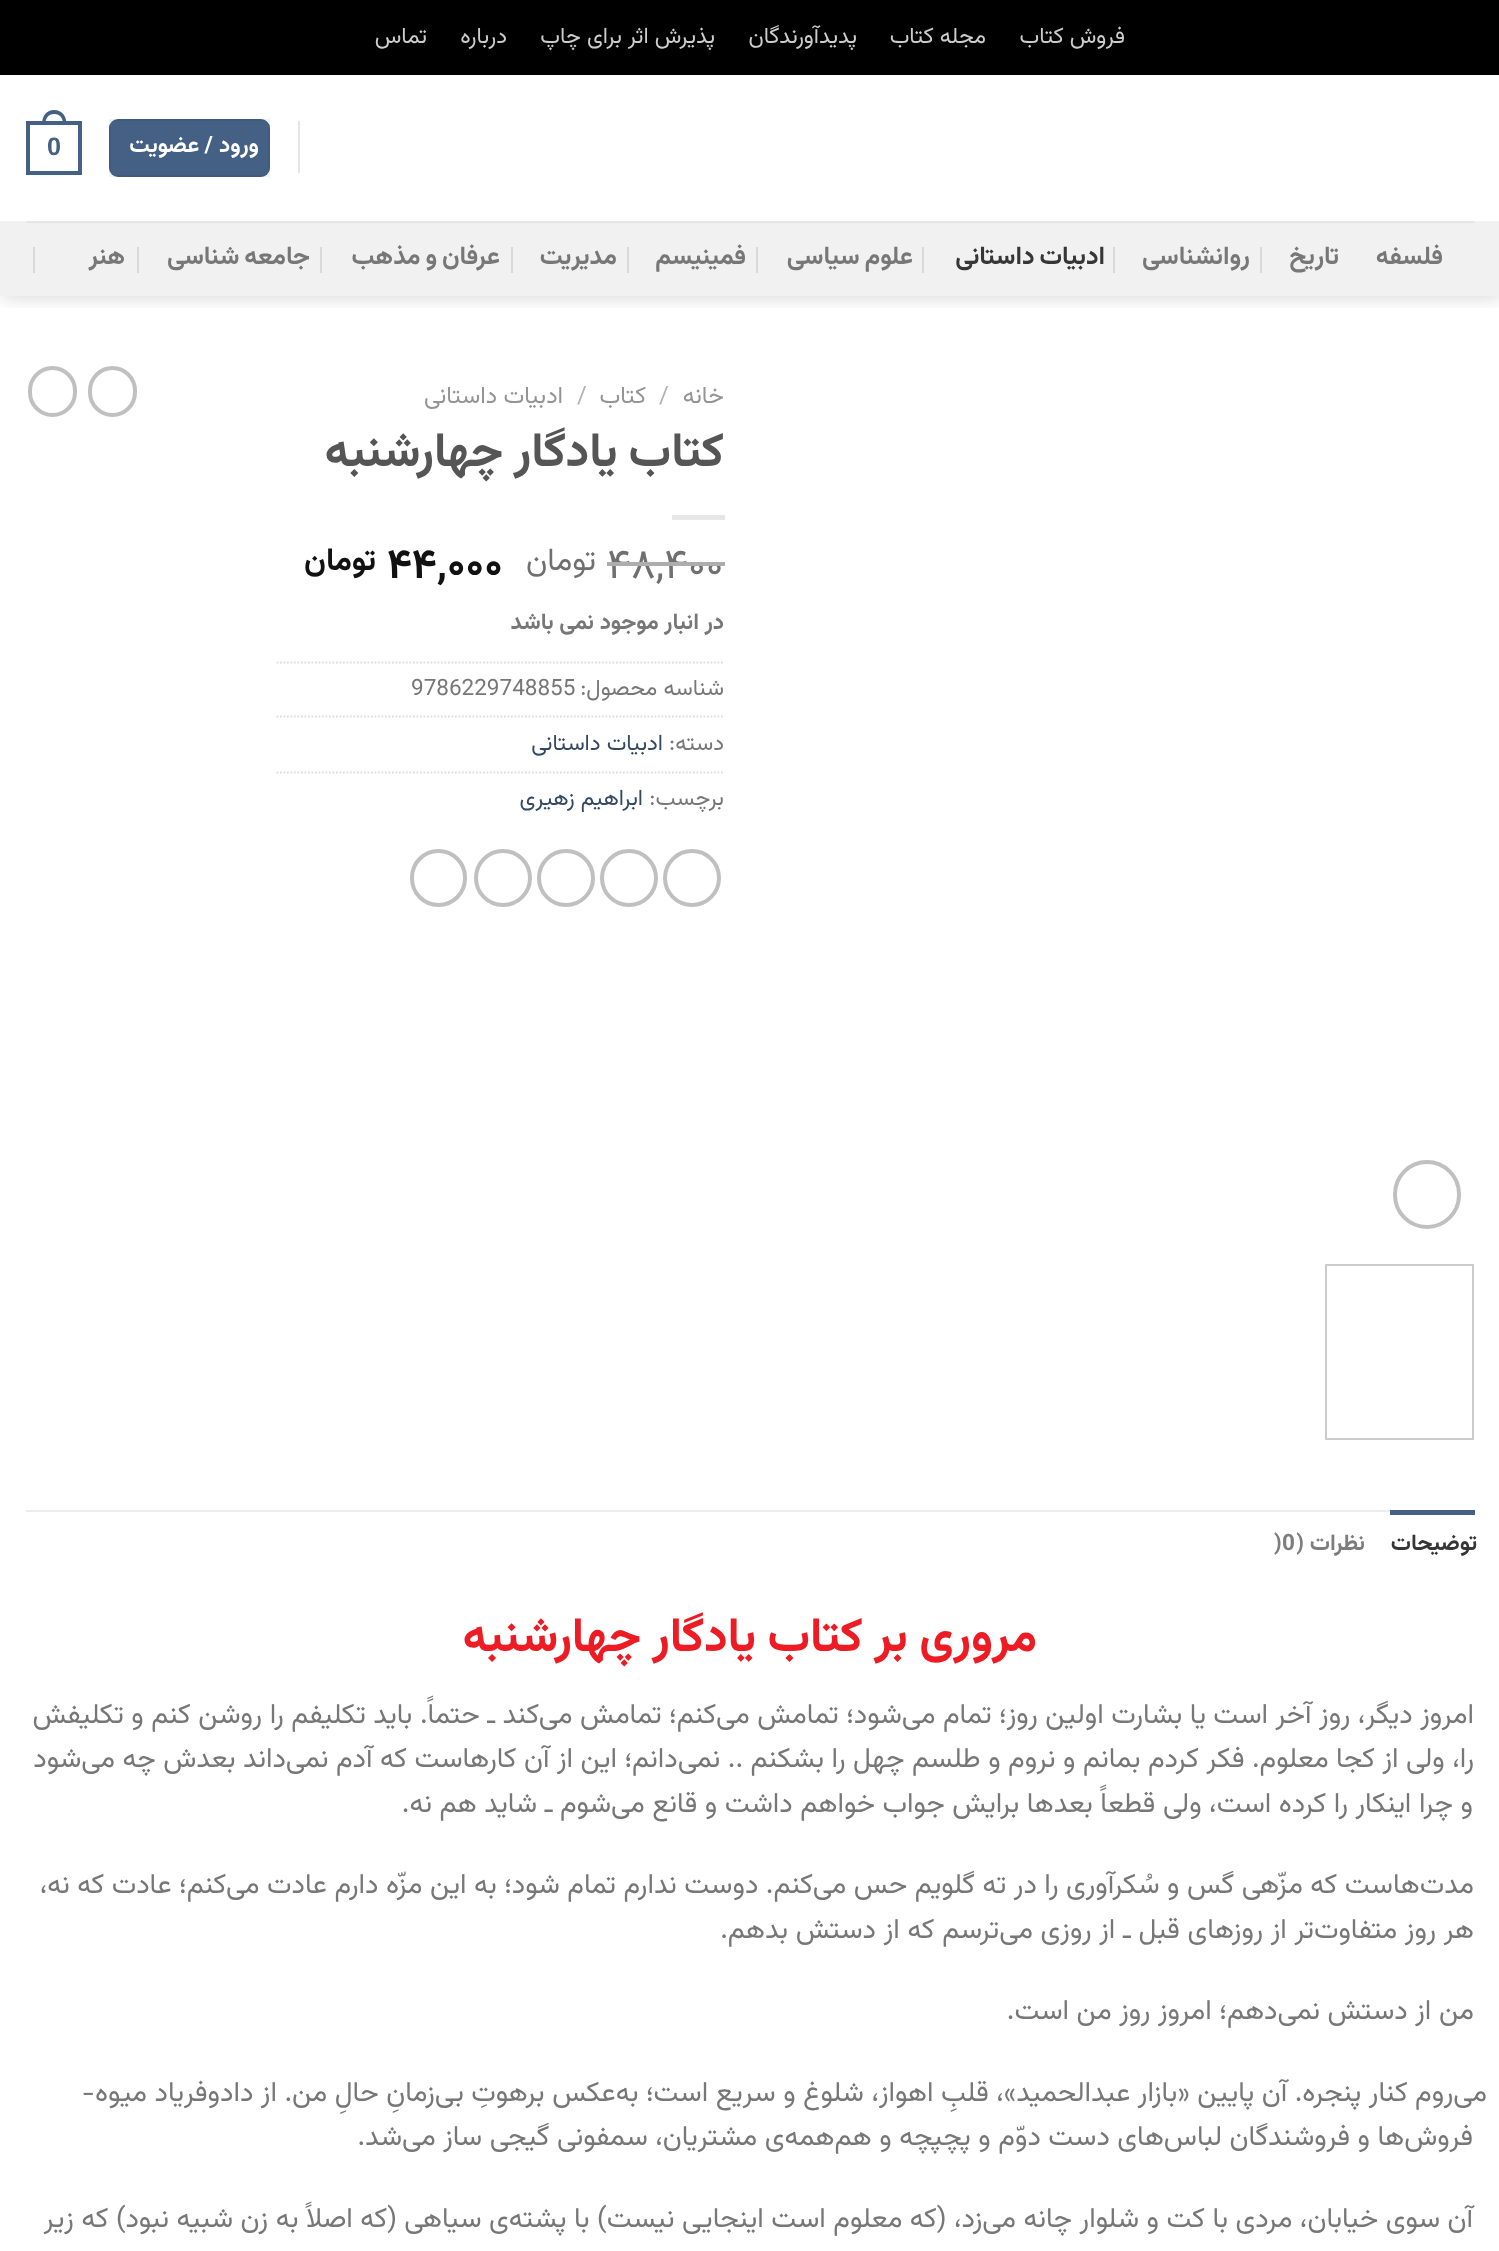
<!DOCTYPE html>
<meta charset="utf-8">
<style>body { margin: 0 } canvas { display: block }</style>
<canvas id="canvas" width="1499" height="2251"></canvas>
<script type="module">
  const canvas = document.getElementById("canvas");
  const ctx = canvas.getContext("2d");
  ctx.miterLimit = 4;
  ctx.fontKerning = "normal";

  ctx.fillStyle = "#ffffff";
  ctx.fillRect(0, 0, 1499, 2251);
  ctx.save();
  ctx.beginPath();
  ctx.rect(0, 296, 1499, 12);
  ctx.clip();
  ctx.fillStyle = "rgba(0, 0, 0, 0.15)";
  ctx.filter = "blur(9px)";
  ctx.beginPath();
  ctx.rect(2, 2, 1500, 296);
  ctx.fill();
  ctx.filter = "none";
  ctx.restore();
  ctx.fillStyle = "#000000";
  ctx.fillRect(0, 0, 1499, 75);
  ctx.direction = "rtl";
  ctx.font = "22.5px Vazirmatn";
  ctx.fillStyle = "#cccccc";
  ctx.fillText("فروش کتاب", 1125, 43);
  ctx.fillText("مجله کتاب", 986, 43);
  ctx.fillText("پدیدآورندگان", 857, 43);
  ctx.fillText("پذیرش اثر برای چاپ", 715, 43);
  ctx.fillText("درباره", 507, 43);
  ctx.fillText("تماس", 427, 43);
  ctx.fillStyle = "#e6e6e6";
  ctx.fillRect(298, 121, 2, 52);
  ctx.fillStyle = "#446084";
  ctx.beginPath();
  ctx.roundRect(109, 119, 161, 58, 9);
  ctx.fill();
  ctx.strokeStyle = "rgba(0, 0, 0, 0.05)";
  ctx.lineWidth = 2;
  ctx.strokeRect(110, 120, 159, 56);
  ctx.letterSpacing = "0.75px";
  ctx.wordSpacing = "-1px";
  ctx.font = "bold 22.5px Vazirmatn";
  ctx.fillStyle = "#ffffff";
  ctx.fillText("ورود / عضویت", 259, 152);
  ctx.strokeStyle = "#446084";
  ctx.lineWidth = 4;
  ctx.strokeRect(28, 123, 52, 50);
  ctx.fillStyle = "#446084";
  ctx.beginPath();
  ctx.moveTo(54, 110);
  ctx.bezierCurveTo(62.5, 110, 66.5, 116.5, 66.5, 124);
  ctx.lineTo(42, 124);
  ctx.bezierCurveTo(42, 116.5, 46, 110, 54, 110);
  ctx.closePath();
  ctx.moveTo(54, 114);
  ctx.bezierCurveTo(60.5, 114, 63, 118.5, 63, 124);
  ctx.lineTo(45.5, 124);
  ctx.bezierCurveTo(45.5, 118.5, 48, 114, 54, 114);
  ctx.closePath();
  ctx.fill("evenodd");
  ctx.letterSpacing = "0.5px";
  ctx.wordSpacing = "0px";
  ctx.direction = "ltr";
  ctx.font = "bold 25.25px Liberation Sans";
  ctx.fillText("0", 47, 155);
  ctx.fillStyle = "#f1f1f1";
  ctx.fillRect(0, 221, 1499, 75);
  ctx.fillStyle = "#e5e5e5";
  ctx.fillRect(26, 221, 1448, 2);
  ctx.direction = "rtl";
  ctx.font = "bold 25.25px Vazirmatn";
  ctx.fillStyle = "#777777";
  ctx.fillText("فلسفه", 1443, 264);
  ctx.fillText("تاریخ", 1339, 264);
  ctx.fillStyle = "#d9d9d9";
  ctx.fillRect(1260, 247, 2, 26);
  ctx.fillStyle = "#777777";
  ctx.fillText("روانشناسی", 1250, 264);
  ctx.fillStyle = "#d9d9d9";
  ctx.fillRect(1113, 247, 2, 26);
  ctx.wordSpacing = "-2px";
  ctx.fillStyle = "#363636";
  ctx.fillText("ادبیات داستانی", 1105, 264);
  ctx.fillStyle = "#d9d9d9";
  ctx.fillRect(922, 247, 2, 26);
  ctx.fillStyle = "#777777";
  ctx.fillText("علوم سیاسی", 913, 264);
  ctx.fillStyle = "#d9d9d9";
  ctx.fillRect(756, 247, 2, 26);
  ctx.wordSpacing = "0px";
  ctx.fillStyle = "#777777";
  ctx.fillText("فمینیسم", 746, 264);
  ctx.fillStyle = "#d9d9d9";
  ctx.fillRect(627, 247, 2, 26);
  ctx.fillStyle = "#777777";
  ctx.fillText("مدیریت", 617, 264);
  ctx.fillStyle = "#d9d9d9";
  ctx.fillRect(511, 247, 2, 26);
  ctx.wordSpacing = "-2px";
  ctx.fillStyle = "#777777";
  ctx.fillText("عرفان و مذهب", 500, 264);
  ctx.fillStyle = "#d9d9d9";
  ctx.fillRect(320, 247, 2, 26);
  ctx.fillStyle = "#777777";
  ctx.fillText("جامعه شناسی", 310, 264);
  ctx.fillStyle = "#d9d9d9";
  ctx.fillRect(137, 247, 2, 26);
  ctx.wordSpacing = "0px";
  ctx.fillStyle = "#777777";
  ctx.fillText("هنر", 125, 264);
  ctx.fillStyle = "#d9d9d9";
  ctx.fillRect(33, 247, 2, 26);
  ctx.letterSpacing = "0px";
  ctx.font = "23.75px Vazirmatn";
  ctx.fillStyle = "#949494";
  ctx.fillText("خانه", 724, 403);
  ctx.direction = "ltr";
  ctx.fillStyle = "#b2b2b2";
  ctx.fillText("/", 659, 403);
  ctx.direction = "rtl";
  ctx.fillStyle = "#949494";
  ctx.fillText("کتاب", 646, 403);
  ctx.direction = "ltr";
  ctx.fillStyle = "#b2b2b2";
  ctx.fillText("/", 577, 403);
  ctx.direction = "rtl";
  ctx.fillStyle = "#949494";
  ctx.fillText("ادبیات داستانی", 563, 403);
  ctx.wordSpacing = "-1px";
  ctx.font = "bold 47.6px Vazirmatn";
  ctx.fillStyle = "#555555";
  ctx.fillText("کتاب یادگار چهارشنبه", 724, 466);
  ctx.fillStyle = "#e6e6e6";
  ctx.fillRect(672, 515, 53, 5);
  ctx.wordSpacing = "0px";
  ctx.direction = "ltr";
  ctx.font = "42px Vazirmatn";
  ctx.fillStyle = "#707070";
  ctx.fillText("۴۸,۴۰۰", 607, 578);
  ctx.fillStyle = "#adadad";
  ctx.fillRect(607, 562, 118, 4);
  ctx.direction = "rtl";
  ctx.font = "31.5px Vazirmatn";
  ctx.fillStyle = "#707070";
  ctx.fillText("تومان", 596, 570);
  ctx.direction = "ltr";
  ctx.font = "bold 42px Vazirmatn";
  ctx.fillStyle = "#111111";
  ctx.fillText("۴۴,۰۰۰", 387, 578);
  ctx.direction = "rtl";
  ctx.font = "bold 31.5px Vazirmatn";
  ctx.fillText("تومان", 376, 570);
  ctx.font = "bold 22.5px Vazirmatn";
  ctx.fillStyle = "#777777";
  ctx.fillText("در انبار موجود نمی باشد", 724, 629);
  ctx.beginPath();
  ctx.moveTo(276.5, 662.5);
  ctx.lineTo(724.5, 662.5);
  ctx.strokeStyle = "#dddddd";
  ctx.lineWidth = 1.8;
  ctx.setLineDash([1.75, 1.75]);
  ctx.stroke();
  ctx.font = "22.5px Vazirmatn";
  ctx.fillText("شناسه محصول:", 724, 695);
  ctx.direction = "ltr";
  ctx.fillText("9786229748855", 411, 695);
  ctx.beginPath();
  ctx.moveTo(276.5, 716.5);
  ctx.lineTo(724.5, 716.5);
  ctx.stroke();
  ctx.direction = "rtl";
  ctx.fillText("دسته:", 724, 750);
  ctx.fillStyle = "#334862";
  ctx.fillText("ادبیات داستانی", 663, 750);
  ctx.beginPath();
  ctx.moveTo(276.5, 772.5);
  ctx.lineTo(724.5, 772.5);
  ctx.stroke();
  ctx.fillStyle = "#777777";
  ctx.fillText("برچسب:", 724, 805);
  ctx.fillStyle = "#334862";
  ctx.fillText("ابراهیم زهیری", 643, 805);
  ctx.beginPath();
  ctx.arc(692, 878, 27, 0, Math.PI * 2);
  ctx.strokeStyle = "#c0c0c0";
  ctx.lineWidth = 4;
  ctx.setLineDash([]);
  ctx.stroke();
  ctx.beginPath();
  ctx.arc(629, 878, 27, 0, Math.PI * 2);
  ctx.stroke();
  ctx.beginPath();
  ctx.arc(566, 878, 27, 0, Math.PI * 2);
  ctx.stroke();
  ctx.beginPath();
  ctx.arc(503, 878, 27, 0, Math.PI * 2);
  ctx.stroke();
  ctx.beginPath();
  ctx.roundRect(412, 851, 53, 54, 26.5);
  ctx.stroke();
  ctx.beginPath();
  ctx.roundRect(90, 368, 45, 47, 22.5);
  ctx.stroke();
  ctx.beginPath();
  ctx.roundRect(30, 368, 45, 47, 22.5);
  ctx.stroke();
  ctx.beginPath();
  ctx.roundRect(1395, 1162, 64, 65, 32);
  ctx.stroke();
  ctx.strokeStyle = "#cccccc";
  ctx.lineWidth = 2;
  ctx.strokeRect(1326, 1265, 147, 174);
  ctx.fillStyle = "#ececec";
  ctx.fillRect(26, 1510, 1364, 2);
  ctx.fillStyle = "#446084";
  ctx.fillRect(1390, 1510, 85, 5);
  ctx.letterSpacing = "0.5px";
  ctx.font = "bold 22.5px Vazirmatn";
  ctx.fillStyle = "#363636";
  ctx.fillText("توضیحات", 1477, 1550);
  ctx.wordSpacing = "-1px";
  ctx.fillStyle = "#7d7d7d";
  ctx.fillText("نظرات (", 1365, 1550);
  ctx.wordSpacing = "0px";
  ctx.direction = "ltr";
  ctx.fillText("0", 1282, 1550);
  ctx.fillText(")", 1274, 1550);
  ctx.letterSpacing = "0px";
  ctx.wordSpacing = "-0.5px";
  ctx.direction = "rtl";
  ctx.font = "bold 47.6px Vazirmatn";
  ctx.fillStyle = "#ed1c24";
  ctx.fillText("مروری بر کتاب یادگار چهارشنبه", 1037, 1651);
  ctx.wordSpacing = "0px";
  ctx.font = "28px Vazirmatn";
  ctx.fillStyle = "#777777";
  ctx.fillText("امروز دیگر، روز آخر است یا بشارت اولین روز؛ تمام می‌شود؛ تمامش می‌كنم؛ تمامش می‌كند ـ حتماً. باید تكلیفم را روشن كنم و تكلیفش", 1474, 1723);
  ctx.fillText("را، ولی از كجا معلوم. فكر كردم بمانم و نروم و طلسم چهل را بشكنم .. نمی‌دانم؛ این از آن كارهاست كه آدم نمی‌داند بعدش چه می‌شود", 1474, 1767);
  ctx.fillText("و چرا اینكار را كرده است، ولی قطعاً بعدها برایش جواب خواهم داشت و قانع می‌شوم ـ شاید هم نه.", 1473, 1812);
  ctx.fillText("مدت‌هاست كه مزّهی گس و سُكرآوری را در ته گلویم حس می‌كنم. دوست ندارم تمام شود؛ به این مزّه دارم عادت می‌كنم؛ عادت كه نه،", 1474, 1893);
  ctx.wordSpacing = "0.2px";
  ctx.fillText("هر روز متفاوت‌تر از روزهای قبل ـ از روزی می‌ترسم كه از دستش بدهم.", 1474, 1938);
  ctx.wordSpacing = "0px";
  ctx.fillText("من از دستش نمی‌دهم؛ امروز روز من است.", 1474, 2019);
  ctx.fillText("می‌روم كنار پنجره. آن پایین «بازار عبدالحمید»، قلبِ اهواز، شلوغ و سریع است؛ به‌عكس برهوتِ بی‌زمانِ حالِ من. از دادوفریاد میوه‌-", 1487, 2101);
  ctx.fillText("فروش‌ها و فروشندگان لباس‌های دست دوّم و پچپچه و هم‌همه‌ی مشتریان، سمفونی گیجی ساز می‌شد.", 1473, 2145);
  ctx.fillText("آن سوی خیابان، مردی با كت و شلوار چانه می‌زد، (كه معلوم است اینجایی نیست) با پشته‌ی سیاهی (كه اصلاً به زن شبیه نبود) كه زیر", 1473, 2227);
</script>
